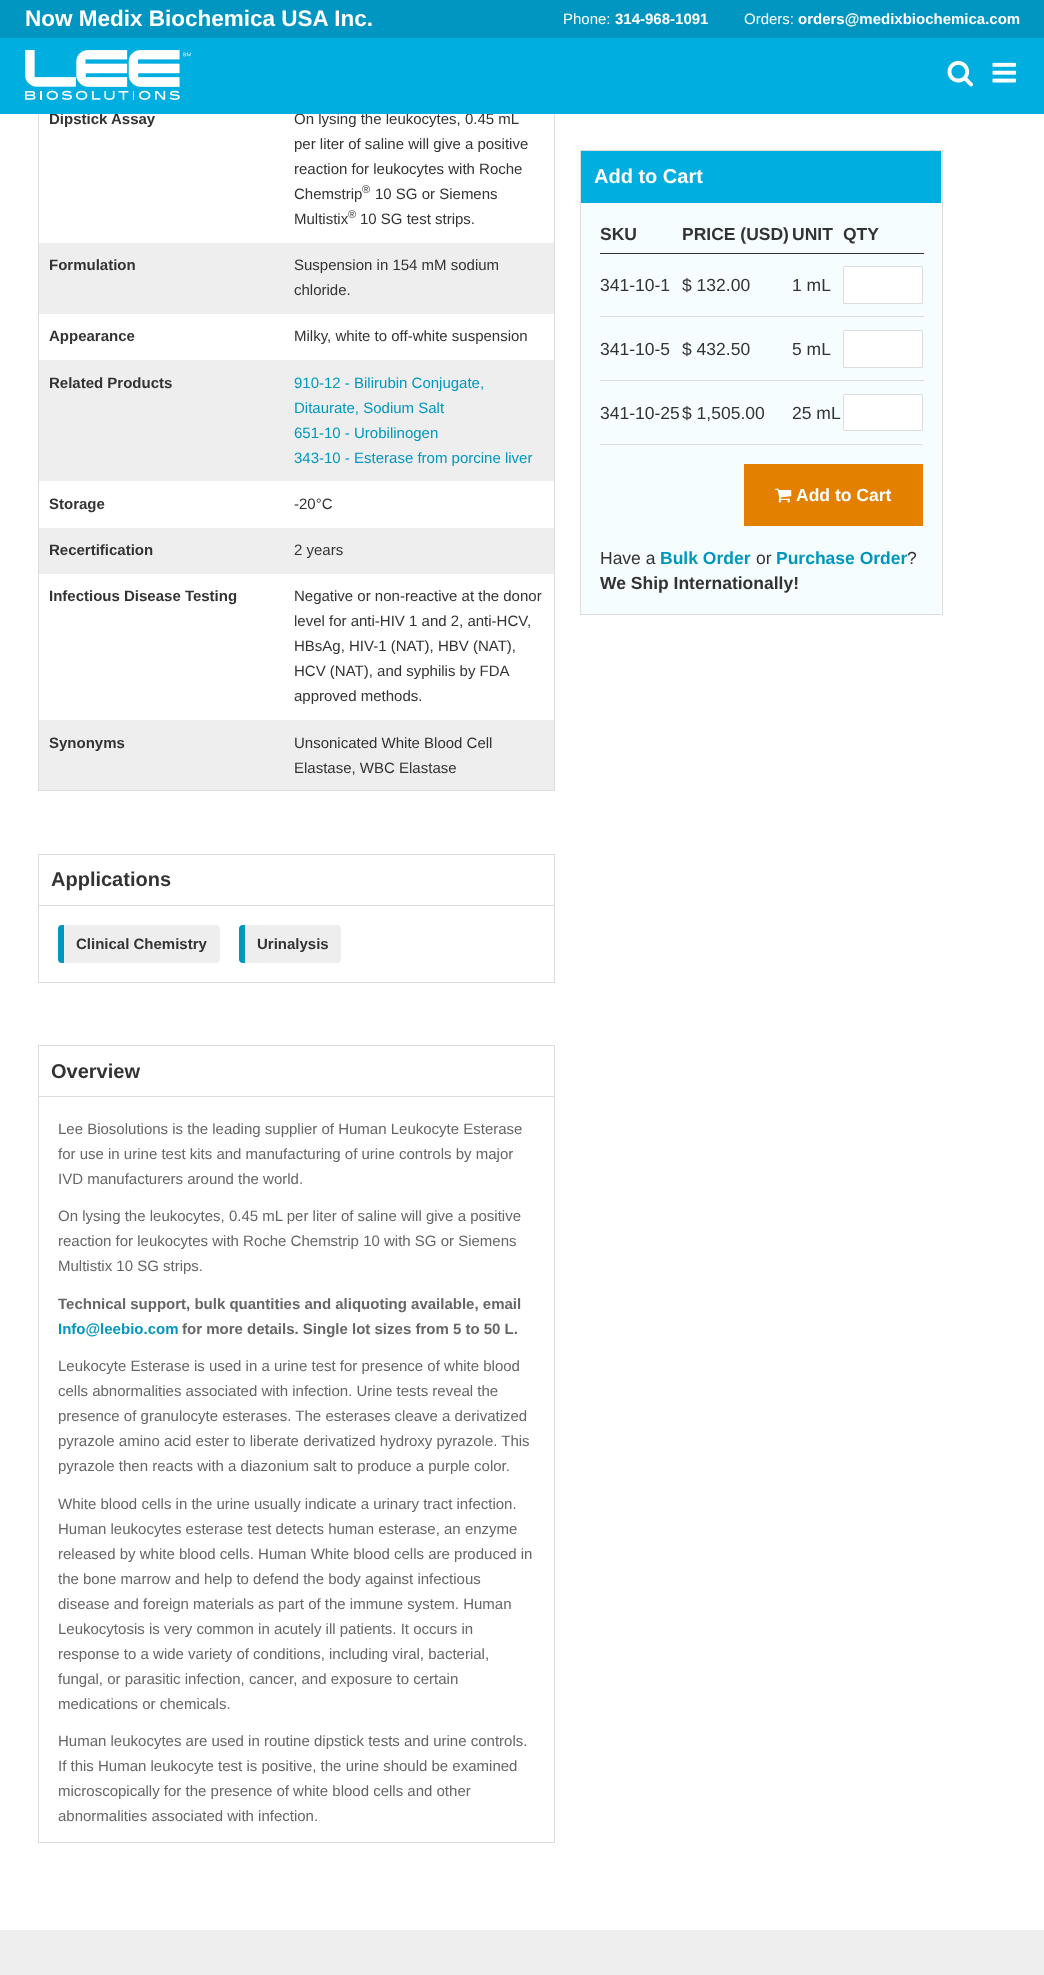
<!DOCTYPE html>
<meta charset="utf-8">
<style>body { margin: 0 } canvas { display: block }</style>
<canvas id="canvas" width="1044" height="1975"></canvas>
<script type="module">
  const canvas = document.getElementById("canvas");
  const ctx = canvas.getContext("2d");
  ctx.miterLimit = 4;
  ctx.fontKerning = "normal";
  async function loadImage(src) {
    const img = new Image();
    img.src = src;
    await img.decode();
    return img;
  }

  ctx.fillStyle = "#ffffff";
  ctx.fillRect(0, 0, 1044, 1975);
  ctx.strokeStyle = "#dddddd";
  ctx.strokeRect(38.5, -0.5, 516, 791);
  ctx.fillStyle = "#0096c1";
  ctx.fillRect(0, 0, 1044, 38);
  ctx.font = "bold 22.5px Liberation Sans";
  ctx.fillStyle = "#ffffff";
  ctx.fillText("Now Medix Biochemica USA Inc.", 25, 26);
  ctx.font = "15px Liberation Sans";
  ctx.fillText("Phone:", 563, 24);
  ctx.font = "bold 15px Liberation Sans";
  ctx.fillText("314-968-1091", 615, 24);
  ctx.font = "15px Liberation Sans";
  ctx.fillText("Orders:", 744, 24);
  ctx.font = "bold 15px Liberation Sans";
  ctx.fillText("orders@medixbiochemica.com", 798, 24);
  ctx.fillStyle = "#333333";
  ctx.fillText("Dipstick Assay", 49, 124);
  ctx.font = "15px Liberation Sans";
  ctx.fillText("On lysing the leukocytes, 0.45 mL", 294, 124);
  ctx.fillStyle = "#00aedf";
  ctx.fillRect(0, 38, 1044, 76);
  ctx.drawImage(await loadImage("img1.png"), 25, 50, 166, 50);
  ctx.drawImage(await loadImage("img2.png"), 947, 60, 26, 27);
  ctx.drawImage(await loadImage("img3.png"), 992, 62, 25, 21);
  ctx.fillStyle = "#333333";
  ctx.fillText("per liter of saline will give a positive", 294, 149);
  ctx.fillText("reaction for leukocytes with Roche", 294, 174);
  ctx.fillText("Chemstrip", 294, 199);
  ctx.font = "11px Liberation Sans";
  ctx.fillText("®", 362, 193);
  ctx.font = "15px Liberation Sans";
  ctx.fillText("10 SG or Siemens", 375, 199);
  ctx.fillText("Multistix", 294, 224);
  ctx.font = "11px Liberation Sans";
  ctx.fillText("®", 348, 218);
  ctx.font = "15px Liberation Sans";
  ctx.fillText("10 SG test strips.", 360, 224);
  ctx.fillStyle = "#eeeeee";
  ctx.fillRect(39, 243, 515, 71);
  ctx.font = "bold 15px Liberation Sans";
  ctx.fillStyle = "#333333";
  ctx.fillText("Formulation", 49, 270);
  ctx.font = "15px Liberation Sans";
  ctx.fillText("Suspension in 154 mM sodium", 294, 270);
  ctx.fillText("chloride.", 294, 295);
  ctx.font = "bold 15px Liberation Sans";
  ctx.fillText("Appearance", 49, 341);
  ctx.font = "15px Liberation Sans";
  ctx.fillText("Milky, white to off-white suspension", 294, 341);
  ctx.fillStyle = "#eeeeee";
  ctx.fillRect(39, 360, 515, 121);
  ctx.font = "bold 15px Liberation Sans";
  ctx.fillStyle = "#333333";
  ctx.fillText("Related Products", 49, 388);
  ctx.font = "15px Liberation Sans";
  ctx.fillStyle = "#0097bf";
  ctx.fillText("910-12 - Bilirubin Conjugate,", 294, 388);
  ctx.fillText("Ditaurate, Sodium Salt", 294, 413);
  ctx.fillText("651-10 - Urobilinogen", 294, 438);
  ctx.fillText("343-10 - Esterase from porcine liver", 294, 463);
  ctx.font = "bold 15px Liberation Sans";
  ctx.fillStyle = "#333333";
  ctx.fillText("Storage", 49, 509);
  ctx.font = "15px Liberation Sans";
  ctx.fillText("-20°C", 294, 509);
  ctx.fillStyle = "#eeeeee";
  ctx.fillRect(39, 528, 515, 46);
  ctx.font = "bold 15px Liberation Sans";
  ctx.fillStyle = "#333333";
  ctx.fillText("Recertification", 49, 555);
  ctx.font = "15px Liberation Sans";
  ctx.fillText("2 years", 294, 555);
  ctx.font = "bold 15px Liberation Sans";
  ctx.fillText("Infectious Disease Testing", 49, 601);
  ctx.font = "15px Liberation Sans";
  ctx.fillText("Negative or non-reactive at the donor", 294, 601);
  ctx.fillText("level for anti-HIV 1 and 2, anti-HCV,", 294, 626);
  ctx.fillText("HBsAg, HIV-1 (NAT), HBV (NAT),", 294, 651);
  ctx.fillText("HCV (NAT), and syphilis by FDA", 294, 676);
  ctx.fillText("approved methods.", 294, 701);
  ctx.fillStyle = "#eeeeee";
  ctx.fillRect(39, 720, 515, 70);
  ctx.font = "bold 15px Liberation Sans";
  ctx.fillStyle = "#333333";
  ctx.fillText("Synonyms", 49, 748);
  ctx.font = "15px Liberation Sans";
  ctx.fillText("Unsonicated White Blood Cell", 294, 748);
  ctx.fillText("Elastase, WBC Elastase", 294, 773);
  ctx.strokeRect(38.5, 854.5, 516, 128);
  ctx.fillStyle = "#dddddd";
  ctx.fillRect(39, 905, 515, 1);
  ctx.font = "bold 20px Liberation Sans";
  ctx.fillStyle = "#333333";
  ctx.fillText("Applications", 51, 886);
  ctx.fillStyle = "#eeeeee";
  ctx.beginPath();
  ctx.roundRect(58, 925, 162, 38, 4);
  ctx.fill();
  ctx.fillStyle = "#0097bf";
  ctx.beginPath();
  ctx.roundRect(58, 925, 6, 38, [4, 0, 0, 4]);
  ctx.fill();
  ctx.font = "bold 15px Liberation Sans";
  ctx.fillStyle = "#333333";
  ctx.fillText("Clinical Chemistry", 76, 949);
  ctx.fillStyle = "#eeeeee";
  ctx.beginPath();
  ctx.roundRect(239, 925, 102, 38, 4);
  ctx.fill();
  ctx.fillStyle = "#0097bf";
  ctx.beginPath();
  ctx.roundRect(239, 925, 6, 38, [4, 0, 0, 4]);
  ctx.fill();
  ctx.fillStyle = "#333333";
  ctx.fillText("Urinalysis", 257, 949);
  ctx.strokeRect(38.5, 1045.5, 516, 797);
  ctx.fillStyle = "#dddddd";
  ctx.fillRect(39, 1096, 515, 1);
  ctx.font = "bold 20px Liberation Sans";
  ctx.fillStyle = "#333333";
  ctx.fillText("Overview", 51, 1078);
  ctx.font = "15px Liberation Sans";
  ctx.fillStyle = "#666666";
  ctx.fillText("Lee Biosolutions is the leading supplier of Human Leukocyte Esterase", 58, 1134);
  ctx.fillText("for use in urine test kits and manufacturing of urine controls by major", 58, 1159);
  ctx.fillText("IVD manufacturers around the world.", 58, 1184);
  ctx.fillText("On lysing the leukocytes, 0.45 mL per liter of saline will give a positive", 58, 1221);
  ctx.fillText("reaction for leukocytes with Roche Chemstrip 10 with SG or Siemens", 58, 1246);
  ctx.fillText("Multistix 10 SG strips.", 58, 1271);
  ctx.font = "bold 15px Liberation Sans";
  ctx.fillText("Technical support, bulk quantities and aliquoting available, email", 58, 1309);
  ctx.fillStyle = "#0097bf";
  ctx.fillText("Info@leebio.com", 58, 1334);
  ctx.fillStyle = "#666666";
  ctx.fillText("for more details. Single lot sizes from 5 to 50 L.", 182, 1334);
  ctx.font = "15px Liberation Sans";
  ctx.fillText("Leukocyte Esterase is used in a urine test for presence of white blood", 58, 1371);
  ctx.fillText("cells abnormalities associated with infection. Urine tests reveal the", 58, 1396);
  ctx.fillText("presence of granulocyte esterases. The esterases cleave a derivatized", 58, 1421);
  ctx.fillText("pyrazole amino acid ester to liberate derivatized hydroxy pyrazole. This", 58, 1446);
  ctx.fillText("pyrazole then reacts with a diazonium salt to produce a purple color.", 58, 1471);
  ctx.fillText("White blood cells in the urine usually indicate a urinary tract infection.", 58, 1509);
  ctx.fillText("Human leukocytes esterase test detects human esterase, an enzyme", 58, 1534);
  ctx.fillText("released by white blood cells. Human White blood cells are produced in", 58, 1559);
  ctx.fillText("the bone marrow and help to defend the body against infectious", 58, 1584);
  ctx.fillText("disease and foreign materials as part of the immune system. Human", 58, 1609);
  ctx.fillText("Leukocytosis is very common in acutely ill patients. It occurs in", 58, 1634);
  ctx.fillText("response to a wide variety of conditions, including viral, bacterial,", 58, 1659);
  ctx.fillText("fungal, or parasitic infection, cancer, and exposure to certain", 58, 1684);
  ctx.fillText("medications or chemicals.", 58, 1709);
  ctx.fillText("Human leukocytes are used in routine dipstick tests and urine controls.", 58, 1746);
  ctx.fillText("If this Human leukocyte test is positive, the urine should be examined", 58, 1771);
  ctx.fillText("microscopically for the presence of white blood cells and other", 58, 1796);
  ctx.fillText("abnormalities associated with infection.", 58, 1821);
  ctx.strokeRect(580.5, 150.5, 362, 464);
  ctx.fillStyle = "#00aedf";
  ctx.fillRect(581, 151, 360, 52);
  ctx.font = "bold 20px Liberation Sans";
  ctx.fillStyle = "#ffffff";
  ctx.fillText("Add to Cart", 594, 183);
  ctx.fillStyle = "#f6fdff";
  ctx.fillRect(581, 203, 360, 411);
  ctx.fillStyle = "#dddddd";
  ctx.fillRect(600, 444, 323, 1);
  ctx.font = "bold 17.5px Liberation Sans";
  ctx.fillStyle = "#333333";
  ctx.fillText("SKU", 600, 240);
  ctx.fillText("PRICE (USD)", 682, 240);
  ctx.fillText("UNIT", 792, 240);
  ctx.fillText("QTY", 843, 240);
  ctx.fillStyle = "#323232";
  ctx.fillRect(600, 253, 324, 1);
  ctx.fillStyle = "#ffffff";
  ctx.beginPath();
  ctx.roundRect(843.5, 266.5, 79, 37, 0.5);
  ctx.fill();
  ctx.stroke();
  ctx.font = "17.5px Liberation Sans";
  ctx.fillStyle = "#333333";
  ctx.fillText("341-10-1", 600, 291);
  ctx.fillText("$ 132.00", 682, 291);
  ctx.fillText("1 mL", 792, 291);
  ctx.fillStyle = "#dddddd";
  ctx.fillRect(600, 316, 324, 1);
  ctx.fillStyle = "#ffffff";
  ctx.beginPath();
  ctx.roundRect(843.5, 330.5, 79, 37, 0.5);
  ctx.fill();
  ctx.stroke();
  ctx.fillStyle = "#333333";
  ctx.fillText("341-10-5", 600, 355);
  ctx.fillText("$ 432.50", 682, 355);
  ctx.fillText("5 mL", 792, 355);
  ctx.fillStyle = "#dddddd";
  ctx.fillRect(600, 380, 324, 1);
  ctx.fillStyle = "#ffffff";
  ctx.beginPath();
  ctx.roundRect(843.5, 394.5, 79, 36, 0.5);
  ctx.fill();
  ctx.stroke();
  ctx.fillStyle = "#333333";
  ctx.fillText("341-10-25", 600, 419);
  ctx.fillText("$ 1,505.00", 682, 419);
  ctx.fillText("25 mL", 792, 419);
  ctx.fillStyle = "#e38000";
  ctx.fillRect(744, 464, 179, 62);
  ctx.drawImage(await loadImage("img4.png"), 775, 488, 17, 15);
  ctx.font = "bold 17.5px Liberation Sans";
  ctx.fillStyle = "#ffffff";
  ctx.fillText("Add to Cart", 796, 501);
  ctx.font = "17.5px Liberation Sans";
  ctx.fillStyle = "#333333";
  ctx.fillText("Have a", 600, 564);
  ctx.font = "bold 17.5px Liberation Sans";
  ctx.fillStyle = "#0097bf";
  ctx.fillText("Bulk Order", 660, 564);
  ctx.font = "17.5px Liberation Sans";
  ctx.fillStyle = "#333333";
  ctx.fillText("or", 756, 564);
  ctx.font = "bold 17.5px Liberation Sans";
  ctx.fillStyle = "#0097bf";
  ctx.fillText("Purchase Order", 776, 564);
  ctx.font = "17.5px Liberation Sans";
  ctx.fillStyle = "#333333";
  ctx.fillText("?", 907, 564);
  ctx.font = "bold 17.5px Liberation Sans";
  ctx.fillText("We Ship Internationally!", 600, 589);
  ctx.fillStyle = "#eeeeee";
  ctx.fillRect(0, 1930, 1044, 45);
</script>
